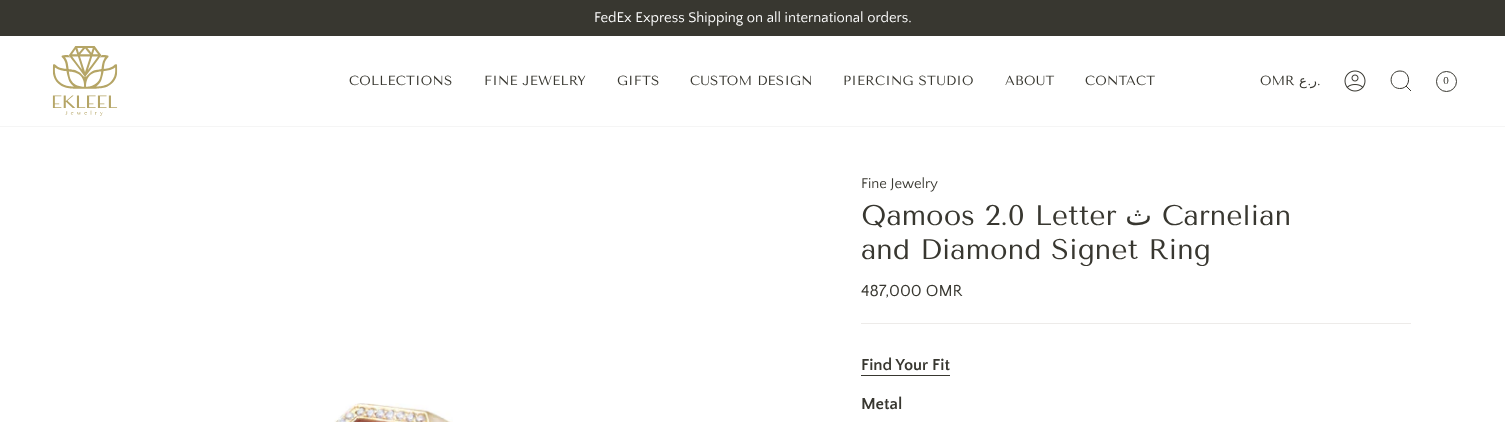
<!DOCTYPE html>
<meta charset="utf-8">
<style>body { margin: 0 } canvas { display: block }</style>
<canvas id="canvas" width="1505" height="422"></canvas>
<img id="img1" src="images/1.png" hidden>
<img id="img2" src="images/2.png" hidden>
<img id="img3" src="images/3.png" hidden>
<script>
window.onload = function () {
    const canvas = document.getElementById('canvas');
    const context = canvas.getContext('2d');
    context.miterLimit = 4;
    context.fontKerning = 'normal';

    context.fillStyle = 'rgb(255, 255, 255)';
    context.fillRect(0, 0, 1505, 422);
    context.fillStyle = 'rgb(56, 55, 48)';
    context.fillRect(0, 0, 1505, 36);
    context.drawImage(document.getElementById('img1'), 52, 46, 66, 70);
    context.drawImage(document.getElementById('img2'), 1344, 70, 22, 22);
    context.beginPath();
    context.moveTo(1400, 71);
    context.bezierCurveTo(1411.5, 71, 1411.5, 89, 1399.5, 88.5);
    context.bezierCurveTo(1388, 88, 1388.5, 71, 1400, 71);
    context.closePath();
    context.moveTo(1406, 86);
    context.lineTo(1411, 91);
    context.strokeStyle = 'rgb(56, 55, 48)';
    context.stroke();
    context.beginPath();
    context.arc(1446.5, 81.5, 10, 0, 2 * Math.PI);
    context.stroke();
    context.fillStyle = 'rgb(245, 245, 245)';
    context.fillRect(0, 126, 1505, 1);
    context.fillStyle = 'rgb(237, 235, 233)';
    context.fillRect(861, 323, 550, 1);
    context.fillStyle = 'rgb(56, 55, 48)';
    context.fillRect(861, 375, 89, 1);
    context.drawImage(document.getElementById('img3'), 334, 403, 119, 19);
    context.font = '14.7px Quattrocento Sans';
    context.fillStyle = 'rgb(255, 255, 255)';
    context.fillText('FedEx Express Shipping on all international orders.', 594, 22);
    context.letterSpacing = '0.25px';
    context.font = '13.25px Tenor Sans';
    context.fillStyle = 'rgb(56, 55, 48)';
    context.fillText('COLLECTIONS', 349, 85);
    context.fillText('FINE JEWELRY', 484, 85);
    context.fillText('GIFTS', 617, 85);
    context.fillText('CUSTOM DESIGN', 690, 85);
    context.fillText('PIERCING STUDIO', 843, 85);
    context.fillText('ABOUT', 1005, 85);
    context.fillText('CONTACT', 1085, 85);
    context.letterSpacing = '0px';
    context.fillText('OMR', 1260, 85);
    context.direction = 'rtl';
    context.font = '13.25px DejaVu Sans';
    context.fillText('ع', 1307, 85);
    context.font = '13.25px Tenor Sans';
    context.fillText('.', 1311, 85);
    context.font = '13.25px DejaVu Sans';
    context.fillText('ر', 1317, 85);
    context.direction = 'ltr';
    context.font = '13.25px Tenor Sans';
    context.fillText('.', 1317, 85);
    context.letterSpacing = '0.25px';
    context.font = '10px Tenor Sans';
    context.fillText('0', 1443, 84);
    context.letterSpacing = '0px';
    context.font = '14.7px Quattrocento Sans';
    context.fillText('Fine Jewelry', 861, 188);
    context.font = '28.4px Tenor Sans';
    context.fillText('Qamoos 2.0 Letter', 861, 225);
    context.direction = 'rtl';
    context.font = '28.4px DejaVu Sans';
    context.fillText('ث', 1152, 225);
    context.direction = 'ltr';
    context.font = '28.4px Tenor Sans';
    context.fillText('Carnelian', 1162, 225);
    context.fillText('and Diamond Signet Ring', 861, 259);
    context.font = '16.75px Quattrocento Sans';
    context.fillText('487,000 OMR', 861, 296);
    context.font = 'bold 16.75px Quattrocento Sans';
    context.fillText('Find Your Fit', 861, 370);
    context.fillText('Metal', 861, 409);
};
</script>
